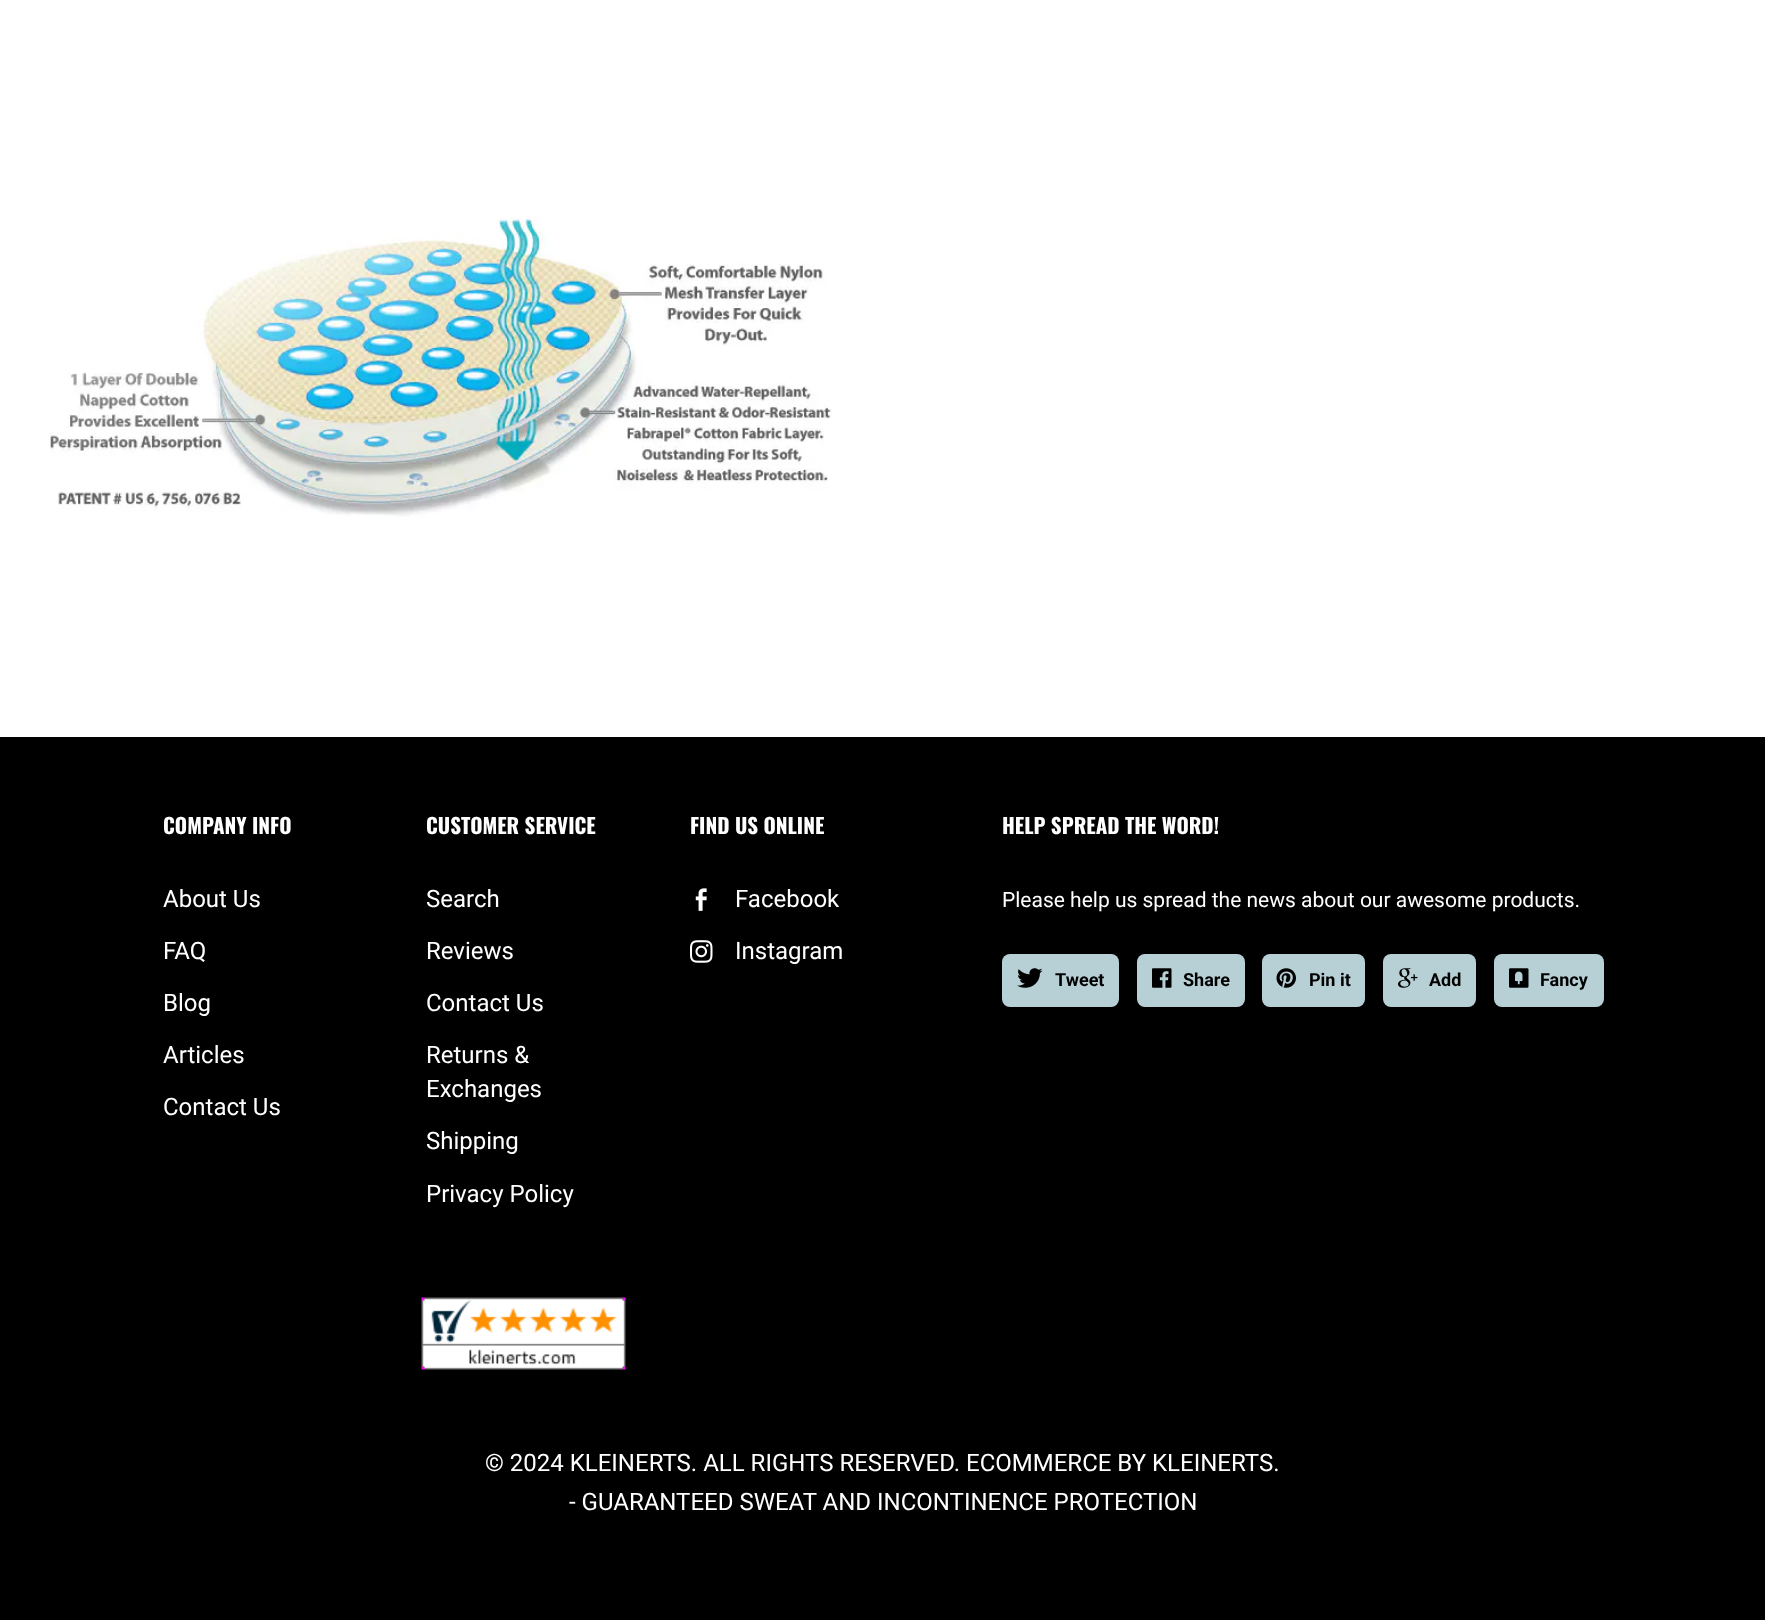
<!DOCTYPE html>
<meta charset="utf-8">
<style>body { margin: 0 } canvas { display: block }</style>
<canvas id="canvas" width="1765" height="1620"></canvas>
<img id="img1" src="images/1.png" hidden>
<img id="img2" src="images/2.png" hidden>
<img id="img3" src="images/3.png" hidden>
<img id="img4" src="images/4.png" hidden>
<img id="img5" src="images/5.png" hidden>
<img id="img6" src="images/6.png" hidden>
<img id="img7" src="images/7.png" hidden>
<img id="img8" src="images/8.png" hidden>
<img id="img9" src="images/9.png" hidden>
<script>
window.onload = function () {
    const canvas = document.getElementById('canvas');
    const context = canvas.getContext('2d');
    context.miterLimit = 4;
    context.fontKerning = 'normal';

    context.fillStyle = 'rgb(255, 255, 255)';
    context.fillRect(0, 0, 1765, 1620);
    context.drawImage(document.getElementById('img1'), 50, 216, 782, 301);
    context.fillStyle = 'rgb(0, 0, 0)';
    context.fillRect(0, 737, 1765, 883);
    context.drawImage(document.getElementById('img2'), 695, 888, 12, 23);
    context.drawImage(document.getElementById('img3'), 690, 940, 23, 23);
    context.fillStyle = 'rgb(182, 208, 214)';
    context.beginPath();
    context.roundRect(1002, 954, 117, 53, 8);
    context.fill();
    context.drawImage(document.getElementById('img4'), 1017, 968, 26, 20);
    context.beginPath();
    context.roundRect(1137, 954, 108, 53, 8);
    context.fill();
    context.drawImage(document.getElementById('img5'), 1152, 968, 20, 20);
    context.beginPath();
    context.roundRect(1262, 954, 103, 53, 8);
    context.fill();
    context.drawImage(document.getElementById('img6'), 1276, 968, 20, 20);
    context.beginPath();
    context.roundRect(1383, 954, 93, 53, 8);
    context.fill();
    context.drawImage(document.getElementById('img7'), 1398, 968, 20, 20);
    context.beginPath();
    context.roundRect(1494, 954, 110, 53, 8);
    context.fill();
    context.drawImage(document.getElementById('img8'), 1509, 968, 20, 20);
    context.drawImage(document.getElementById('img9'), 421, 1297, 205, 73);
    context.font = 'bold 21px Oswald';
    context.fillStyle = 'rgb(255, 255, 255)';
    context.fillText('COMPANY INFO', 163, 834);
    context.font = '24px Roboto';
    context.fillText('About Us', 163, 907);
    context.fillText('FAQ', 163, 959);
    context.fillText('Blog', 163, 1011);
    context.fillText('Articles', 163, 1063);
    context.fillText('Contact Us', 163, 1115);
    context.font = 'bold 21px Oswald';
    context.fillText('CUSTOMER SERVICE', 426, 834);
    context.font = '24px Roboto';
    context.fillText('Search', 426, 907);
    context.fillText('Reviews', 426, 959);
    context.fillText('Contact Us', 426, 1011);
    context.fillText('Returns &', 426, 1063);
    context.fillText('Exchanges', 426, 1097);
    context.fillText('Shipping', 426, 1149);
    context.fillText('Privacy Policy', 426, 1202);
    context.font = 'bold 21px Oswald';
    context.fillText('FIND US ONLINE', 690, 834);
    context.font = '24px Roboto';
    context.fillText('Facebook', 735, 907);
    context.fillText('Instagram', 735, 959);
    context.font = 'bold 21px Oswald';
    context.fillText('HELP SPREAD THE WORD!', 1002, 834);
    context.font = '21px Roboto';
    context.fillText('Please help us spread the news about our awesome products.', 1002, 907);
    context.font = 'bold 18px Roboto';
    context.fillStyle = 'rgb(0, 0, 0)';
    context.fillText('Tweet', 1055, 986);
    context.fillText('Share', 1183, 986);
    context.fillText('Pin it', 1309, 986);
    context.fillText('Add', 1429, 986);
    context.fillText('Fancy', 1540, 986);
    context.font = '24px Roboto';
    context.fillStyle = 'rgb(255, 255, 255)';
    context.fillText('© 2024 KLEINERTS. ALL RIGHTS RESERVED. ECOMMERCE BY KLEINERTS.', 485, 1471);
    context.fillText('- GUARANTEED SWEAT AND INCONTINENCE PROTECTION', 569, 1510);
};
</script>
